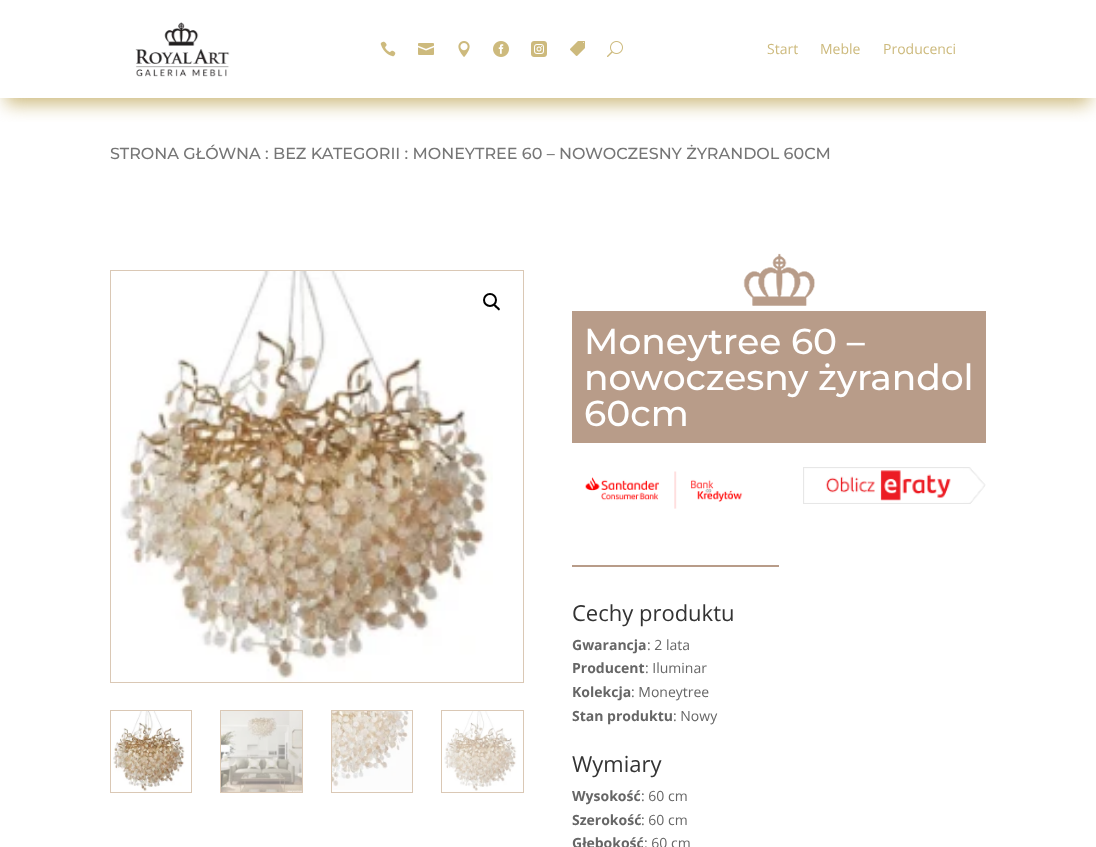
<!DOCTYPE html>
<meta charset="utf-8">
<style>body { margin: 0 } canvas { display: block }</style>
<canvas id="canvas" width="1096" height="847"></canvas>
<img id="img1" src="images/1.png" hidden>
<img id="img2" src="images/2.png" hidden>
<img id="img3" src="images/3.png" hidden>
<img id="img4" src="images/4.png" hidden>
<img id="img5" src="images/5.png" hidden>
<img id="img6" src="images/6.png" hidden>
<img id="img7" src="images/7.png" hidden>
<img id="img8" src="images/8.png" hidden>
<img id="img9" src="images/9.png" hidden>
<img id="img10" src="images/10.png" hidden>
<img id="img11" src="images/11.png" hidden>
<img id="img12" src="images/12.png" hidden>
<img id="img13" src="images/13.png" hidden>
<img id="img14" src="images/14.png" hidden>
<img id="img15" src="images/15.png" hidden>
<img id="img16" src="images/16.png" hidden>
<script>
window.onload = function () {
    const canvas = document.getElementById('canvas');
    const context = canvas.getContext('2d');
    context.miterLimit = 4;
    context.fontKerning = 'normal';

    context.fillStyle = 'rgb(255, 255, 255)';
    context.fillRect(0, 0, 1096, 847);
    context.save();
    context.beginPath();
    context.rect(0, 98, 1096, 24);
    context.clip();
    context.fillStyle = 'rgb(205, 186, 125)';
    context.filter = 'blur(9px)';
    context.beginPath();
    context.rect(6, 18, 1084, 86);
    context.fill();
    context.filter = 'none';
    context.restore();
    context.drawImage(document.getElementById('img1'), 135, 22, 95, 55);
    context.drawImage(document.getElementById('img2'), 380, 41, 16, 16);
    context.drawImage(document.getElementById('img3'), 418, 43, 16, 12);
    context.drawImage(document.getElementById('img4'), 458, 41, 12, 16);
    context.drawImage(document.getElementById('img5'), 493, 41, 16, 16);
    context.drawImage(document.getElementById('img6'), 531, 41, 16, 16);
    context.drawImage(document.getElementById('img7'), 570, 41, 15, 15);
    context.drawImage(document.getElementById('img8'), 607, 41, 16, 16);
    context.strokeStyle = 'rgb(218, 200, 181)';
    context.strokeRect(110.5, 270.5, 413, 412);
    context.drawImage(document.getElementById('img9'), 120, 271, 373, 411);
    context.beginPath();
    context.arc(490, 300, 6, 0, 2 * Math.PI);
    context.strokeStyle = 'rgb(0, 0, 0)';
    context.lineWidth = 2;
    context.stroke();
    context.fillStyle = 'rgb(0, 0, 0)';
    context.beginPath();
    context.moveTo(494, 304.5);
    context.bezierCurveTo(495, 303.5, 497, 306, 497.5, 306.5);
    context.bezierCurveTo(498, 307, 501, 309, 499.5, 310);
    context.bezierCurveTo(498.5, 311.5, 497, 308.5, 496, 308);
    context.bezierCurveTo(495.5, 307.5, 493, 305.5, 494, 304.5);
    context.closePath();
    context.fill();
    context.strokeStyle = 'rgb(218, 200, 181)';
    context.lineWidth = 1;
    context.strokeRect(110.5, 710.5, 81, 82);
    context.drawImage(document.getElementById('img10'), 113, 711, 72, 81);
    context.strokeRect(220.5, 710.5, 82, 82);
    context.drawImage(document.getElementById('img11'), 221, 711, 81, 81);
    context.strokeRect(331.5, 710.5, 81, 82);
    context.drawImage(document.getElementById('img12'), 332, 711, 80, 79);
    context.strokeRect(441.5, 710.5, 82, 82);
    context.drawImage(document.getElementById('img13'), 444, 711, 73, 80);
    context.drawImage(document.getElementById('img14'), 743, 253, 72, 53);
    context.fillStyle = 'rgb(184, 156, 137)';
    context.fillRect(572, 311, 414, 132);
    context.drawImage(document.getElementById('img15'), 585, 471, 158, 38);
    context.drawImage(document.getElementById('img16'), 803, 467, 183, 37);
    context.fillRect(572, 565, 207, 2);
    context.font = '14px Open Sans';
    context.fillStyle = 'rgb(205, 186, 125)';
    context.fillText('Start', 767, 54);
    context.fillText('Meble', 820, 54);
    context.fillText('Producenci', 883, 54);
    context.font = '500 16px Montserrat';
    context.fillStyle = 'rgb(118, 118, 118)';
    context.fillText('STRONA GŁÓWNA : BEZ KATEGORII : MONEYTREE 60 – NOWOCZESNY ŻYRANDOL 60CM', 110, 159);
    context.font = '500 36px Montserrat';
    context.fillStyle = 'rgb(255, 255, 255)';
    context.fillText('Moneytree 60 –', 584, 354);
    context.fillText('nowoczesny żyrandol', 584, 390);
    context.fillText('60cm', 584, 426);
    context.font = '22px Open Sans';
    context.fillStyle = 'rgb(51, 51, 51)';
    context.fillText('Cechy produktu', 572, 621);
    context.font = 'bold 14px Open Sans';
    context.fillStyle = 'rgb(102, 102, 102)';
    context.fillText('Gwarancja', 572, 650);
    context.font = '14px Open Sans';
    context.fillText(': 2 lata', 647, 650);
    context.font = 'bold 14px Open Sans';
    context.fillText('Producent', 572, 673);
    context.font = '14px Open Sans';
    context.fillText(': Iluminar', 645, 673);
    context.font = 'bold 14px Open Sans';
    context.fillText('Kolekcja', 572, 697);
    context.font = '14px Open Sans';
    context.fillText(': Moneytree', 631, 697);
    context.font = 'bold 14px Open Sans';
    context.fillText('Stan produktu', 572, 721);
    context.font = '14px Open Sans';
    context.fillText(': Nowy', 673, 721);
    context.font = '22px Open Sans';
    context.fillStyle = 'rgb(51, 51, 51)';
    context.fillText('Wymiary', 572, 772);
    context.font = 'bold 14px Open Sans';
    context.fillStyle = 'rgb(102, 102, 102)';
    context.fillText('Wysokość', 572, 801);
    context.font = '14px Open Sans';
    context.fillText(': 60 cm', 641, 801);
    context.font = 'bold 14px Open Sans';
    context.fillText('Szerokość', 572, 825);
    context.font = '14px Open Sans';
    context.fillText(': 60 cm', 641, 825);
    context.font = 'bold 14px Open Sans';
    context.fillText('Głębokość', 572, 848);
    context.font = '14px Open Sans';
    context.fillText(': 60 cm', 644, 848);
};
</script>
